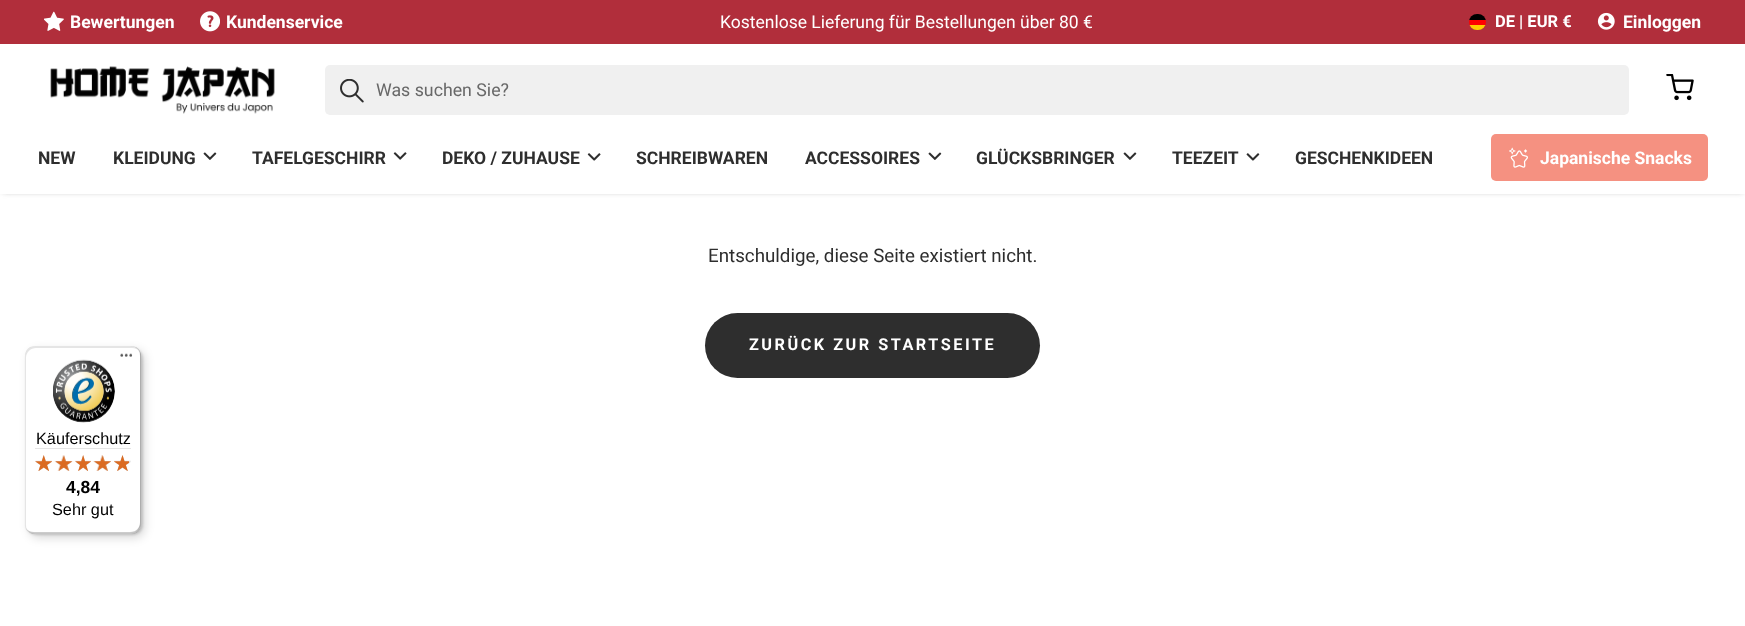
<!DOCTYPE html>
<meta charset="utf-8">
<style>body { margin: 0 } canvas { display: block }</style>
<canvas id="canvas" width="1745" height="626"></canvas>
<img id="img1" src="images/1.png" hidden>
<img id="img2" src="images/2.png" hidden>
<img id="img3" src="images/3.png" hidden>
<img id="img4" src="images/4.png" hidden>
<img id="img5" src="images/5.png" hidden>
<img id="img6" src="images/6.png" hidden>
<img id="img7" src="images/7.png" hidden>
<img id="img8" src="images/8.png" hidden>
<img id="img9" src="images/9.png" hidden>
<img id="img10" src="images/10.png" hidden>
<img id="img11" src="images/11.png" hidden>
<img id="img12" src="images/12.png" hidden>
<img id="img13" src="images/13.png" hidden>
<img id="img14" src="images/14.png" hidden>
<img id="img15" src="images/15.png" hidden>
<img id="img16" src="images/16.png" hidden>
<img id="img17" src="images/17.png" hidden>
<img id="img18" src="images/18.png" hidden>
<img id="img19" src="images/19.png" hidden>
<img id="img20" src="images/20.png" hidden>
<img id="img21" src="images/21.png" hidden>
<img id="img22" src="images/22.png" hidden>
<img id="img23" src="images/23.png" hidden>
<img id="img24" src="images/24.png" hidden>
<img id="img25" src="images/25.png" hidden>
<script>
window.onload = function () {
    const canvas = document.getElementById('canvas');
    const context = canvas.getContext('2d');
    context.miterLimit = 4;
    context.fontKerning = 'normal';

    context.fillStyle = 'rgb(255, 255, 255)';
    context.fillRect(0, 0, 1745, 626);
    context.fillStyle = 'rgb(145, 145, 145)';
    context.filter = 'blur(3px)';
    context.beginPath();
    context.rect(3, 3, 1740, 188);
    context.fill();
    context.filter = 'none';
    context.fillStyle = 'rgb(255, 255, 255)';
    context.fillRect(0, 44, 1745, 150);
    context.fillStyle = 'rgb(177, 46, 59)';
    context.fillRect(0, 0, 1745, 44);
    context.drawImage(document.getElementById('img1'), 44, 11, 20, 20);
    context.drawImage(document.getElementById('img2'), 200, 11, 20, 21);
    context.save();
    context.beginPath();
    context.roundRect(1469, 14, 17, 16, 8);
    context.clip();
    context.fillStyle = 'rgb(255, 204, 0)';
    context.fillRect(1469, 25, 17, 5);
    context.fillStyle = 'rgb(0, 0, 0)';
    context.fillRect(1469, 14, 17, 6);
    context.fillStyle = 'rgb(255, 0, 0)';
    context.fillRect(1469, 20, 17, 5);
    context.restore();
    context.drawImage(document.getElementById('img3'), 1597, 12, 18, 18);
    context.drawImage(document.getElementById('img4'), 50, 66, 225, 48);
    context.fillStyle = 'rgb(240, 240, 240)';
    context.beginPath();
    context.roundRect(325, 65, 1304, 50, 5);
    context.fill();
    context.drawImage(document.getElementById('img5'), 340, 79, 24, 24);
    context.drawImage(document.getElementById('img6'), 1666, 74, 28, 27);
    context.drawImage(document.getElementById('img7'), 203, 152, 14, 8);
    context.drawImage(document.getElementById('img8'), 393, 152, 14, 8);
    context.drawImage(document.getElementById('img9'), 587, 153, 14, 8);
    context.drawImage(document.getElementById('img10'), 928, 152, 14, 8);
    context.drawImage(document.getElementById('img11'), 1123, 152, 14, 8);
    context.drawImage(document.getElementById('img12'), 1246, 153, 14, 8);
    context.fillStyle = 'rgb(245, 145, 129)';
    context.beginPath();
    context.roundRect(1491, 134, 217, 47, 5);
    context.fill();
    context.drawImage(document.getElementById('img13'), 1509, 147, 19, 21);
    context.fillStyle = 'rgb(46, 46, 46)';
    context.beginPath();
    context.roundRect(705, 313, 335, 65, 32.5);
    context.fill();
    context.fillStyle = 'rgba(0, 0, 0, 0.15)';
    context.filter = 'blur(5px)';
    context.beginPath();
    context.roundRect(29, 350, 116, 188, 10);
    context.fill();
    context.filter = 'none';
    context.filter = 'blur(1px)';
    context.beginPath();
    context.roundRect(26, 348, 117, 187, 10);
    context.fill();
    context.filter = 'none';
    context.fillStyle = 'rgb(255, 255, 255)';
    context.beginPath();
    context.roundRect(25, 346, 116, 188, 10);
    context.fill();
    context.fillStyle = 'rgba(0, 0, 0, 0.1)';
    context.beginPath();
    context.moveTo(36, 348);
    context.lineTo(132, 348);
    context.bezierCurveTo(135, 348, 138, 349, 140, 352);
    context.bezierCurveTo(138, 348, 135, 346, 131, 346);
    context.lineTo(35, 346);
    context.bezierCurveTo(29, 346, 25, 350, 25, 356);
    context.lineTo(25, 524);
    context.bezierCurveTo(25, 527, 26, 530, 28, 532);
    context.bezierCurveTo(27, 530, 26, 528, 26, 525);
    context.lineTo(26, 358);
    context.bezierCurveTo(26, 352, 31, 348, 36, 348);
    context.closePath();
    context.fill();
    context.fillStyle = 'rgba(0, 0, 0, 0.2)';
    context.beginPath();
    context.moveTo(26, 528);
    context.bezierCurveTo(28, 532, 31, 534, 35, 534);
    context.lineTo(131, 534);
    context.bezierCurveTo(137, 534, 141, 530, 141, 524);
    context.lineTo(141, 356);
    context.bezierCurveTo(141, 354, 140, 351, 139, 350);
    context.bezierCurveTo(140, 351, 140, 353, 140, 355);
    context.lineTo(140, 522);
    context.bezierCurveTo(140, 528, 136, 532, 130, 532);
    context.lineTo(34, 532);
    context.bezierCurveTo(31, 532, 28, 531, 26, 528);
    context.closePath();
    context.fill();
    context.fillStyle = 'rgba(50, 50, 50, 0.2)';
    context.beginPath();
    context.moveTo(27, 530);
    context.bezierCurveTo(29, 533, 32, 534, 35, 534);
    context.lineTo(131, 534);
    context.bezierCurveTo(137, 534, 141, 530, 141, 524);
    context.lineTo(141, 356);
    context.bezierCurveTo(141, 350, 137, 346, 131, 346);
    context.lineTo(130, 346);
    context.bezierCurveTo(136, 346, 140, 350, 140, 356);
    context.lineTo(140, 523);
    context.bezierCurveTo(140, 529, 136, 533, 130, 533);
    context.lineTo(34, 533);
    context.bezierCurveTo(32, 533, 29, 532, 27, 530);
    context.closePath();
    context.fill();
    context.drawImage(document.getElementById('img14'), 120, 353, 13, 4);
    context.fillStyle = 'rgba(255, 255, 255, 0.3)';
    context.beginPath();
    context.moveTo(27, 530);
    context.bezierCurveTo(29, 533, 32, 534, 35, 534);
    context.lineTo(131, 534);
    context.bezierCurveTo(137, 534, 141, 530, 141, 524);
    context.lineTo(141, 523);
    context.bezierCurveTo(141, 529, 136, 533, 131, 533);
    context.lineTo(34, 533);
    context.bezierCurveTo(32, 533, 29, 532, 27, 530);
    context.closePath();
    context.moveTo(139, 350);
    context.bezierCurveTo(137, 347, 134, 346, 131, 346);
    context.bezierCurveTo(134, 346, 137, 347, 139, 350);
    context.closePath();
    context.fill('evenodd');
    context.drawImage(document.getElementById('img15'), 53, 359, 62, 64);
    context.fillStyle = 'rgb(229, 229, 229)';
    context.fillRect(35, 448, 96, 1);
    context.drawImage(document.getElementById('img16'), 35, 455, 17, 16);
    context.drawImage(document.getElementById('img17'), 55, 455, 17, 16);
    context.drawImage(document.getElementById('img18'), 75, 455, 16, 16);
    context.drawImage(document.getElementById('img19'), 93, 455, 18, 16);
    context.drawImage(document.getElementById('img20'), 114, 455, 17, 16);
    context.drawImage(document.getElementById('img21'), 35, 455, 17, 16);
    context.drawImage(document.getElementById('img22'), 54, 455, 19, 16);
    context.drawImage(document.getElementById('img23'), 75, 455, 16, 16);
    context.drawImage(document.getElementById('img24'), 93, 455, 18, 16);
    context.drawImage(document.getElementById('img25'), 114, 455, 15, 16);
    context.font = 'bold 17.5px Roboto';
    context.fillStyle = 'rgb(255, 255, 255)';
    context.fillText('Bewertungen', 70, 28);
    context.fillText('Kundenservice', 226, 28);
    context.font = '17.5px Roboto';
    context.fillText('Kostenlose Lieferung für Bestellungen über 80 €', 720, 28);
    context.font = 'bold 16.5px Roboto';
    context.fillText('DE | EUR €', 1495, 27);
    context.font = 'bold 17.5px Roboto';
    context.fillText('Einloggen', 1623, 28);
    context.font = '17.75px Roboto';
    context.fillStyle = 'rgb(104, 104, 104)';
    context.fillText('Was suchen Sie?', 376, 96);
    context.font = 'bold 17.5px Roboto';
    context.fillStyle = 'rgb(46, 46, 46)';
    context.fillText('NEW', 38, 164);
    context.fillText('KLEIDUNG', 113, 164);
    context.fillText('TAFELGESCHIRR', 252, 164);
    context.fillText('DEKO / ZUHAUSE', 442, 164);
    context.fillText('SCHREIBWAREN', 636, 164);
    context.fillText('ACCESSOIRES', 805, 164);
    context.fillText('GLÜCKSBRINGER', 976, 164);
    context.fillText('TEEZEIT', 1172, 164);
    context.fillText('GESCHENKIDEEN', 1295, 164);
    context.fillStyle = 'rgb(255, 255, 255)';
    context.fillText('Japanische Snacks', 1540, 164);
    context.font = '18.75px Roboto';
    context.fillStyle = 'rgb(46, 46, 46)';
    context.fillText('Entschuldige, diese Seite existiert nicht.', 708, 262);
    context.letterSpacing = '2.5px';
    context.font = 'bold 16.25px Roboto';
    context.fillStyle = 'rgb(255, 255, 255)';
    context.fillText('ZURÜCK ZUR STARTSEITE', 749, 350);
    context.letterSpacing = '0px';
    context.font = '16.25px Liberation Sans';
    context.fillStyle = 'rgb(0, 0, 0)';
    context.fillText('Käuferschutz', 36, 444);
    context.font = 'bold 17.5px Liberation Sans';
    context.fillText('4,84', 66, 493);
    context.font = '16.25px Liberation Sans';
    context.fillText('Sehr gut', 52, 515);
};
</script>
